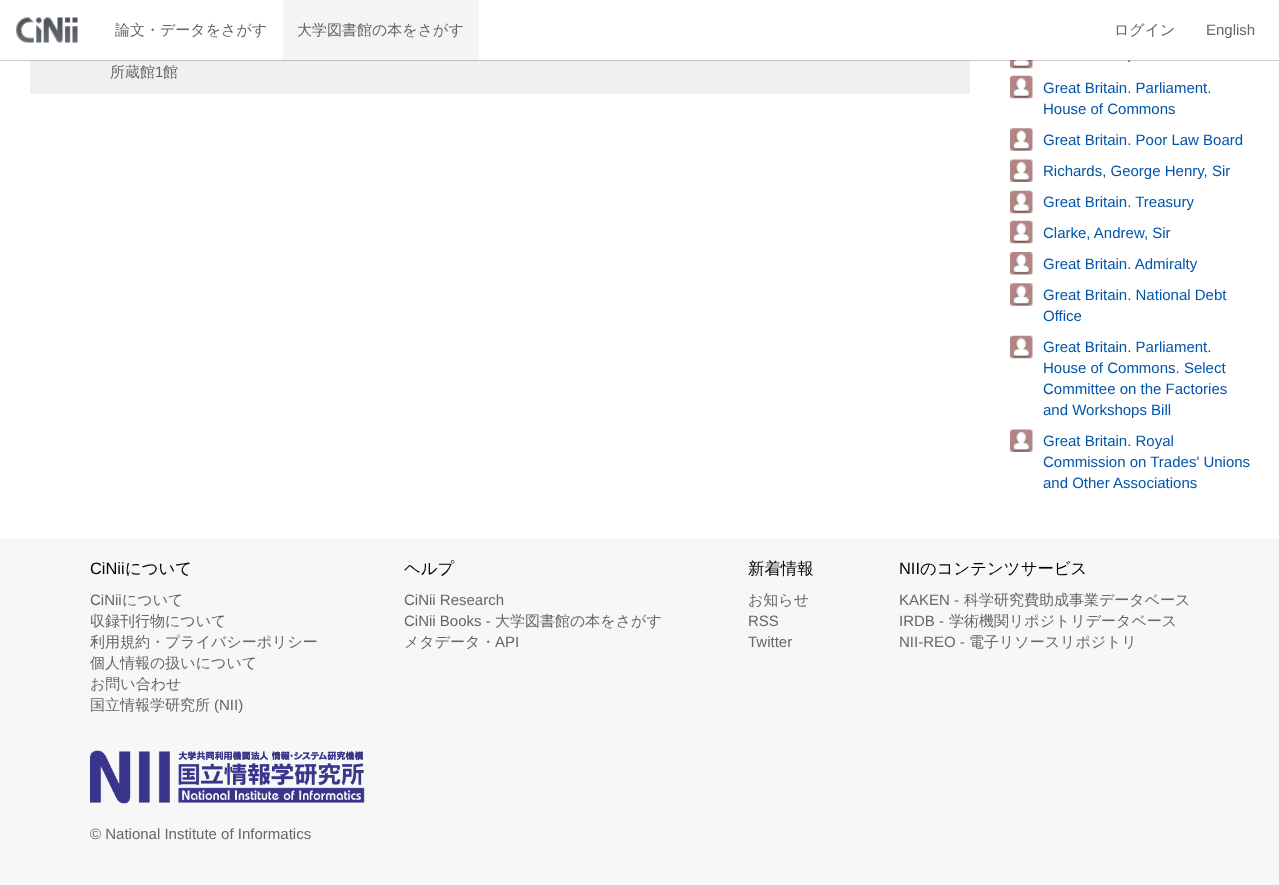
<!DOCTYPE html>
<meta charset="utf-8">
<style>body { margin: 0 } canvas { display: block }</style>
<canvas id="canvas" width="1279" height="885"></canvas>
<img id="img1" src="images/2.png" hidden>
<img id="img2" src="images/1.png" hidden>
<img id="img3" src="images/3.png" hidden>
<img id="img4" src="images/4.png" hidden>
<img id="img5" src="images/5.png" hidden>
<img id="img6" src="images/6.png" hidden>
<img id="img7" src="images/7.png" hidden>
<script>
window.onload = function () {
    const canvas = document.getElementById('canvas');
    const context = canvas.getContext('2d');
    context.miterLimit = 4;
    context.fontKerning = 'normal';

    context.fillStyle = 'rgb(255, 255, 255)';
    context.fillRect(0, 0, 1279, 885);
    context.fillStyle = 'rgb(240, 240, 240)';
    context.fillRect(30, 60, 940, 34);
    context.drawImage(document.getElementById('img1'), 1010, 60, 23, 9);
    context.fillStyle = 'rgba(0, 0, 0, 0.2)';
    context.filter = 'blur(0.5px)';
    context.beginPath();
    context.rect(0, 1, 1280, 60);
    context.fill();
    context.filter = 'none';
    context.fillStyle = 'rgb(255, 255, 255)';
    context.fillRect(0, 0, 1279, 60);
    context.drawImage(document.getElementById('img2'), 16, 17, 62, 26);
    context.fillStyle = 'rgb(244, 244, 244)';
    context.fillRect(283, 0, 196, 60);
    context.drawImage(document.getElementById('img3'), 1010, 75, 23, 24);
    context.drawImage(document.getElementById('img4'), 1010, 128, 23, 23);
    context.drawImage(document.getElementById('img5'), 1010, 159, 23, 23);
    context.drawImage(document.getElementById('img3'), 1010, 190, 23, 24);
    context.drawImage(document.getElementById('img3'), 1010, 220, 23, 24);
    context.drawImage(document.getElementById('img6'), 1010, 252, 23, 23);
    context.drawImage(document.getElementById('img4'), 1010, 283, 23, 23);
    context.drawImage(document.getElementById('img3'), 1010, 335, 23, 24);
    context.drawImage(document.getElementById('img5'), 1010, 429, 23, 23);
    context.fillStyle = 'rgb(247, 247, 247)';
    context.fillRect(0, 539, 1279, 346);
    context.drawImage(document.getElementById('img7'), 90, 750, 275, 54);
    context.font = '500 15px WenQuanYi Zen Hei';
    context.fillStyle = 'rgb(102, 102, 102)';
    context.fillText('論文・データをさがす', 115, 35);
    context.fillText('大学図書館の本をさがす', 297, 35);
    context.fillText('ログイン', 1114, 35);
    context.font = '15px Liberation Sans';
    context.fillText('English', 1206, 35);
    context.font = '500 15px WenQuanYi Zen Hei';
    context.fillText('所蔵館', 110, 77);
    context.font = '15px Liberation Sans';
    context.fillText('1', 155, 77);
    context.font = '500 15px WenQuanYi Zen Hei';
    context.fillText('館', 163, 77);
    context.font = '15px Liberation Sans';
    context.fillStyle = 'rgb(0, 85, 170)';
    context.fillText('.', 1127, 62);
    context.fillText('Great Britain. Parliament.', 1043, 93);
    context.fillText('House of Commons', 1043, 114);
    context.fillText('Great Britain. Poor Law Board', 1043, 145);
    context.fillText('Richards, George Henry, Sir', 1043, 176);
    context.fillText('Great Britain. Treasury', 1043, 207);
    context.fillText('Clarke, Andrew, Sir', 1043, 238);
    context.fillText('Great Britain. Admiralty', 1043, 269);
    context.fillText('Great Britain. National Debt', 1043, 300);
    context.fillText('Office', 1043, 321);
    context.fillText('Great Britain. Parliament.', 1043, 352);
    context.fillText('House of Commons. Select', 1043, 373);
    context.fillText('Committee on the Factories', 1043, 394);
    context.fillText('and Workshops Bill', 1043, 415);
    context.fillText('Great Britain. Royal', 1043, 446);
    context.fillText('Commission on Trades\' Unions', 1043, 467);
    context.fillText('and Other Associations', 1043, 488);
    context.font = '16.4px Liberation Sans';
    context.fillStyle = 'rgb(0, 0, 0)';
    context.fillText('CiNii', 90, 574);
    context.font = '500 16.4px WenQuanYi Zen Hei';
    context.fillText('について', 125, 574);
    context.font = '15px Liberation Sans';
    context.fillStyle = 'rgb(102, 102, 102)';
    context.fillText('CiNii', 90, 605);
    context.font = '500 15px WenQuanYi Zen Hei';
    context.fillText('について', 122, 605);
    context.fillText('収録刊行物について', 90, 626);
    context.fillText('利用規約・プライバシーポリシー', 90, 647);
    context.fillText('個人情報の扱いについて', 90, 668);
    context.fillText('お問い合わせ', 90, 689);
    context.fillText('国立情報学研究所', 90, 710);
    context.font = '15px Liberation Sans';
    context.fillText('(NII)', 214, 710);
    context.font = '500 16.4px WenQuanYi Zen Hei';
    context.fillStyle = 'rgb(0, 0, 0)';
    context.fillText('ヘルプ', 404, 574);
    context.font = '15px Liberation Sans';
    context.fillStyle = 'rgb(102, 102, 102)';
    context.fillText('CiNii Research', 404, 605);
    context.fillText('CiNii Books -', 404, 626);
    context.font = '500 15px WenQuanYi Zen Hei';
    context.fillText('大学図書館の本をさがす', 495, 626);
    context.fillText('メタデータ・', 404, 647);
    context.font = '15px Liberation Sans';
    context.fillText('API', 495, 647);
    context.font = '500 16.4px WenQuanYi Zen Hei';
    context.fillStyle = 'rgb(0, 0, 0)';
    context.fillText('新着情報', 748, 574);
    context.font = '500 15px WenQuanYi Zen Hei';
    context.fillStyle = 'rgb(102, 102, 102)';
    context.fillText('お知らせ', 748, 605);
    context.font = '15px Liberation Sans';
    context.fillText('RSS', 748, 626);
    context.fillText('Twitter', 748, 647);
    context.font = '16.4px Liberation Sans';
    context.fillStyle = 'rgb(0, 0, 0)';
    context.fillText('NII', 899, 574);
    context.font = '500 16.4px WenQuanYi Zen Hei';
    context.fillText('のコンテンツサービス', 920, 574);
    context.font = '15px Liberation Sans';
    context.fillStyle = 'rgb(102, 102, 102)';
    context.fillText('KAKEN -', 899, 605);
    context.font = '500 15px WenQuanYi Zen Hei';
    context.fillText('科学研究費助成事業データベース', 964, 605);
    context.font = '15px Liberation Sans';
    context.fillText('IRDB -', 899, 626);
    context.font = '500 15px WenQuanYi Zen Hei';
    context.fillText('学術機関リポジトリデータベース', 949, 626);
    context.font = '15px Liberation Sans';
    context.fillText('NII-REO -', 899, 647);
    context.font = '500 15px WenQuanYi Zen Hei';
    context.fillText('電子リソースリポジトリ', 969, 647);
    context.font = '15px Liberation Sans';
    context.fillText('© National Institute of Informatics', 90, 839);
};
</script>
